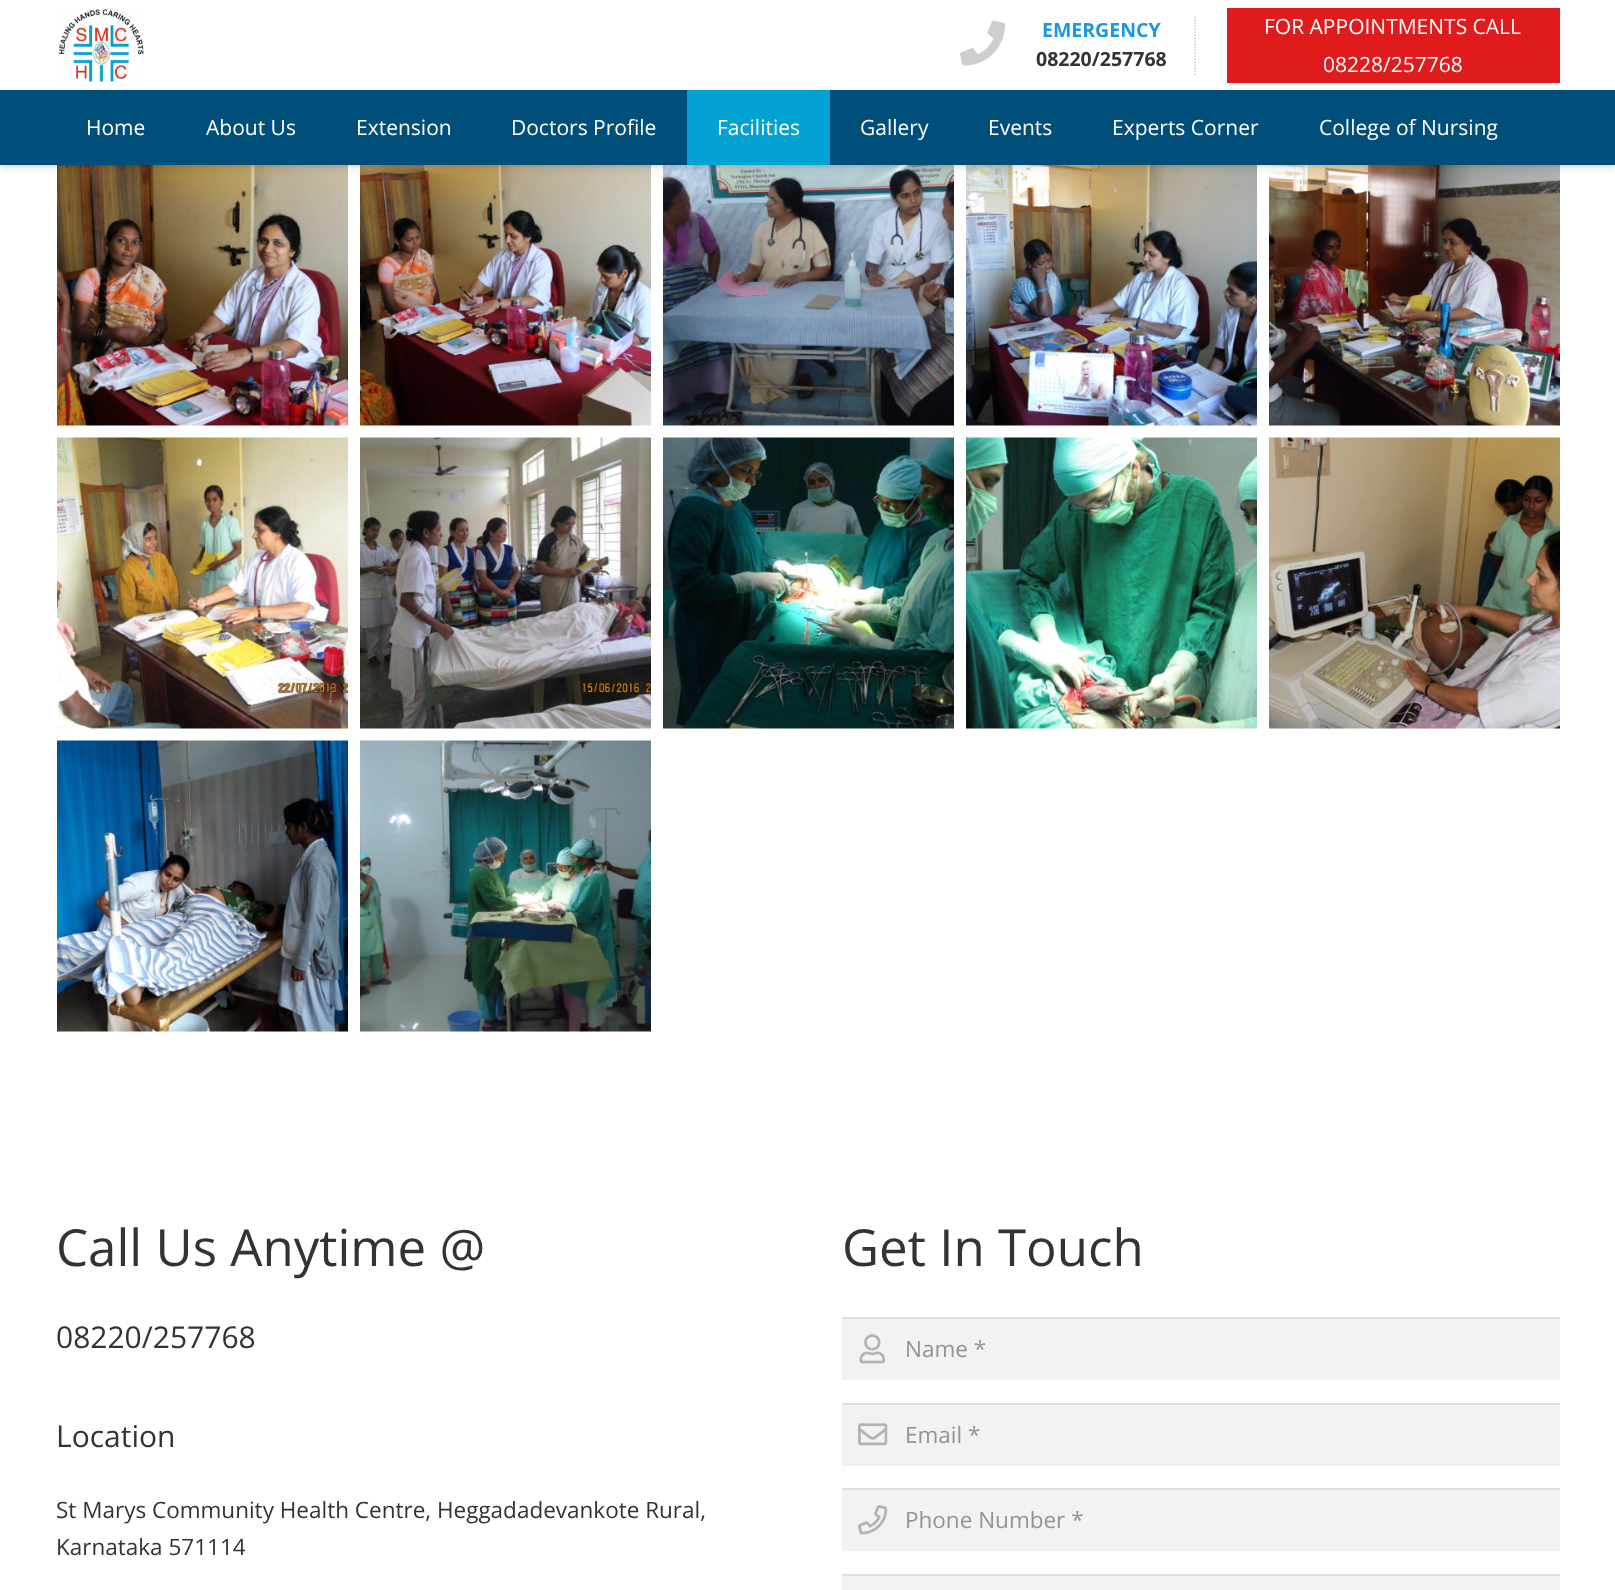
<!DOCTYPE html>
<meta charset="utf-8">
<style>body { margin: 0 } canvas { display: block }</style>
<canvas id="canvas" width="1615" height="1590"></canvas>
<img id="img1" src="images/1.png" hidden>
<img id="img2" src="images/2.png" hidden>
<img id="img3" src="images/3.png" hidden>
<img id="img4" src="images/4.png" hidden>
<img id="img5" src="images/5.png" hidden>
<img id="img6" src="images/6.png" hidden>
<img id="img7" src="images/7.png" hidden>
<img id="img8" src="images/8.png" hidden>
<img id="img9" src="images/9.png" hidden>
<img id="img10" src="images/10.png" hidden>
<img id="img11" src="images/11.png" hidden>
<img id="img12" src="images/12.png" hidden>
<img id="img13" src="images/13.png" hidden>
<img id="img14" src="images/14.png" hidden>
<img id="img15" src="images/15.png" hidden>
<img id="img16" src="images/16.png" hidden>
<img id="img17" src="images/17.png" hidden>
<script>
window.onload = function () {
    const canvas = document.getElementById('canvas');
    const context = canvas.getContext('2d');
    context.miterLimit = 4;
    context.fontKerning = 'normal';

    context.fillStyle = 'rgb(255, 255, 255)';
    context.fillRect(0, 0, 1615, 1590);
    context.drawImage(document.getElementById('img1'), 59, 9, 85, 74);
    context.drawImage(document.getElementById('img2'), 960, 20, 45, 46);
    context.beginPath();
    context.moveTo(1195, 16.5);
    context.lineTo(1195, 75);
    context.strokeStyle = 'rgb(204, 204, 204)';
    context.lineWidth = 1.5;
    context.setLineDash([1.5, 1.5]);
    context.stroke();
    context.fillStyle = 'rgb(224, 27, 27)';
    context.fillRect(1227, 8, 333, 75);
    context.drawImage(document.getElementById('img3'), 57, 165, 291, 261);
    context.drawImage(document.getElementById('img4'), 360, 165, 291, 261);
    context.drawImage(document.getElementById('img5'), 663, 165, 291, 261);
    context.drawImage(document.getElementById('img6'), 966, 165, 291, 261);
    context.drawImage(document.getElementById('img7'), 1269, 165, 291, 261);
    context.fillStyle = 'rgba(0, 0, 0, 0.05)';
    context.filter = 'blur(1px)';
    context.beginPath();
    context.rect(2, 95, 1612, 72);
    context.fill();
    context.filter = 'none';
    context.fillStyle = 'rgba(0, 0, 0, 0.1)';
    context.filter = 'blur(4px)';
    context.beginPath();
    context.rect(2, 96, 1612, 72);
    context.fill();
    context.filter = 'none';
    context.fillStyle = 'rgb(0, 78, 122)';
    context.fillRect(0, 90, 1615, 75);
    context.fillStyle = 'rgb(2, 162, 211)';
    context.fillRect(687, 90, 143, 75);
    context.drawImage(document.getElementById('img8'), 57, 437, 291, 292);
    context.drawImage(document.getElementById('img9'), 360, 437, 291, 292);
    context.drawImage(document.getElementById('img10'), 663, 437, 291, 292);
    context.drawImage(document.getElementById('img11'), 966, 437, 291, 292);
    context.drawImage(document.getElementById('img12'), 1269, 437, 291, 292);
    context.drawImage(document.getElementById('img13'), 57, 740, 291, 292);
    context.drawImage(document.getElementById('img14'), 360, 740, 291, 292);
    context.fillStyle = 'rgb(242, 242, 242)';
    context.fillRect(842, 1319, 718, 61);
    context.drawImage(document.getElementById('img15'), 859, 1334, 27, 30);
    context.fillStyle = 'rgb(223, 223, 223)';
    context.fillRect(842, 1317, 718, 2);
    context.fillStyle = 'rgb(242, 242, 242)';
    context.fillRect(842, 1405, 718, 61);
    context.drawImage(document.getElementById('img16'), 858, 1423, 30, 23);
    context.fillStyle = 'rgb(223, 223, 223)';
    context.fillRect(842, 1403, 718, 2);
    context.fillStyle = 'rgb(242, 242, 242)';
    context.fillRect(842, 1490, 718, 61);
    context.drawImage(document.getElementById('img17'), 858, 1505, 30, 30);
    context.fillStyle = 'rgb(223, 223, 223)';
    context.fillRect(842, 1488, 718, 2);
    context.fillStyle = 'rgb(242, 242, 242)';
    context.fillRect(842, 1576, 718, 14);
    context.fillStyle = 'rgb(223, 223, 223)';
    context.fillRect(842, 1574, 718, 2);
    context.font = 'bold 19.5px Open Sans';
    context.fillStyle = 'rgb(27, 152, 224)';
    context.fillText('EMERGENCY', 1042, 37);
    context.fillStyle = 'rgb(51, 51, 51)';
    context.fillText('08220/257768', 1036, 66);
    context.font = '21px Open Sans';
    context.fillStyle = 'rgb(255, 255, 255)';
    context.fillText('FOR APPOINTMENTS CALL', 1264, 34);
    context.fillText('08228/257768', 1323, 72);
    context.fillText('Home', 86, 135);
    context.fillText('About Us', 206, 135);
    context.fillText('Extension', 356, 135);
    context.fillText('Doctors Profile', 511, 135);
    context.fillText('Facilities', 717, 135);
    context.fillText('Gallery', 860, 135);
    context.fillText('Events', 988, 135);
    context.fillText('Experts Corner', 1112, 135);
    context.fillText('College of Nursing', 1319, 135);
    context.font = '51px Open Sans';
    context.fillStyle = 'rgb(51, 51, 51)';
    context.fillText('Call Us Anytime @', 56, 1266);
    context.font = '30px Open Sans';
    context.fillText('08220/257768', 56, 1348);
    context.fillText('Location', 56, 1447);
    context.font = '22.5px Open Sans';
    context.fillText('St Marys Community Health Centre, Heggadadevankote Rural,', 56, 1518);
    context.fillText('Karnataka 571114', 56, 1555);
    context.font = '51px Open Sans';
    context.fillText('Get In Touch', 842, 1266);
    context.font = '22.5px Open Sans';
    context.fillStyle = 'rgb(147, 147, 147)';
    context.fillText('Name *', 905, 1357);
    context.fillText('Email *', 905, 1443);
    context.fillText('Phone Number *', 905, 1528);
};
</script>
